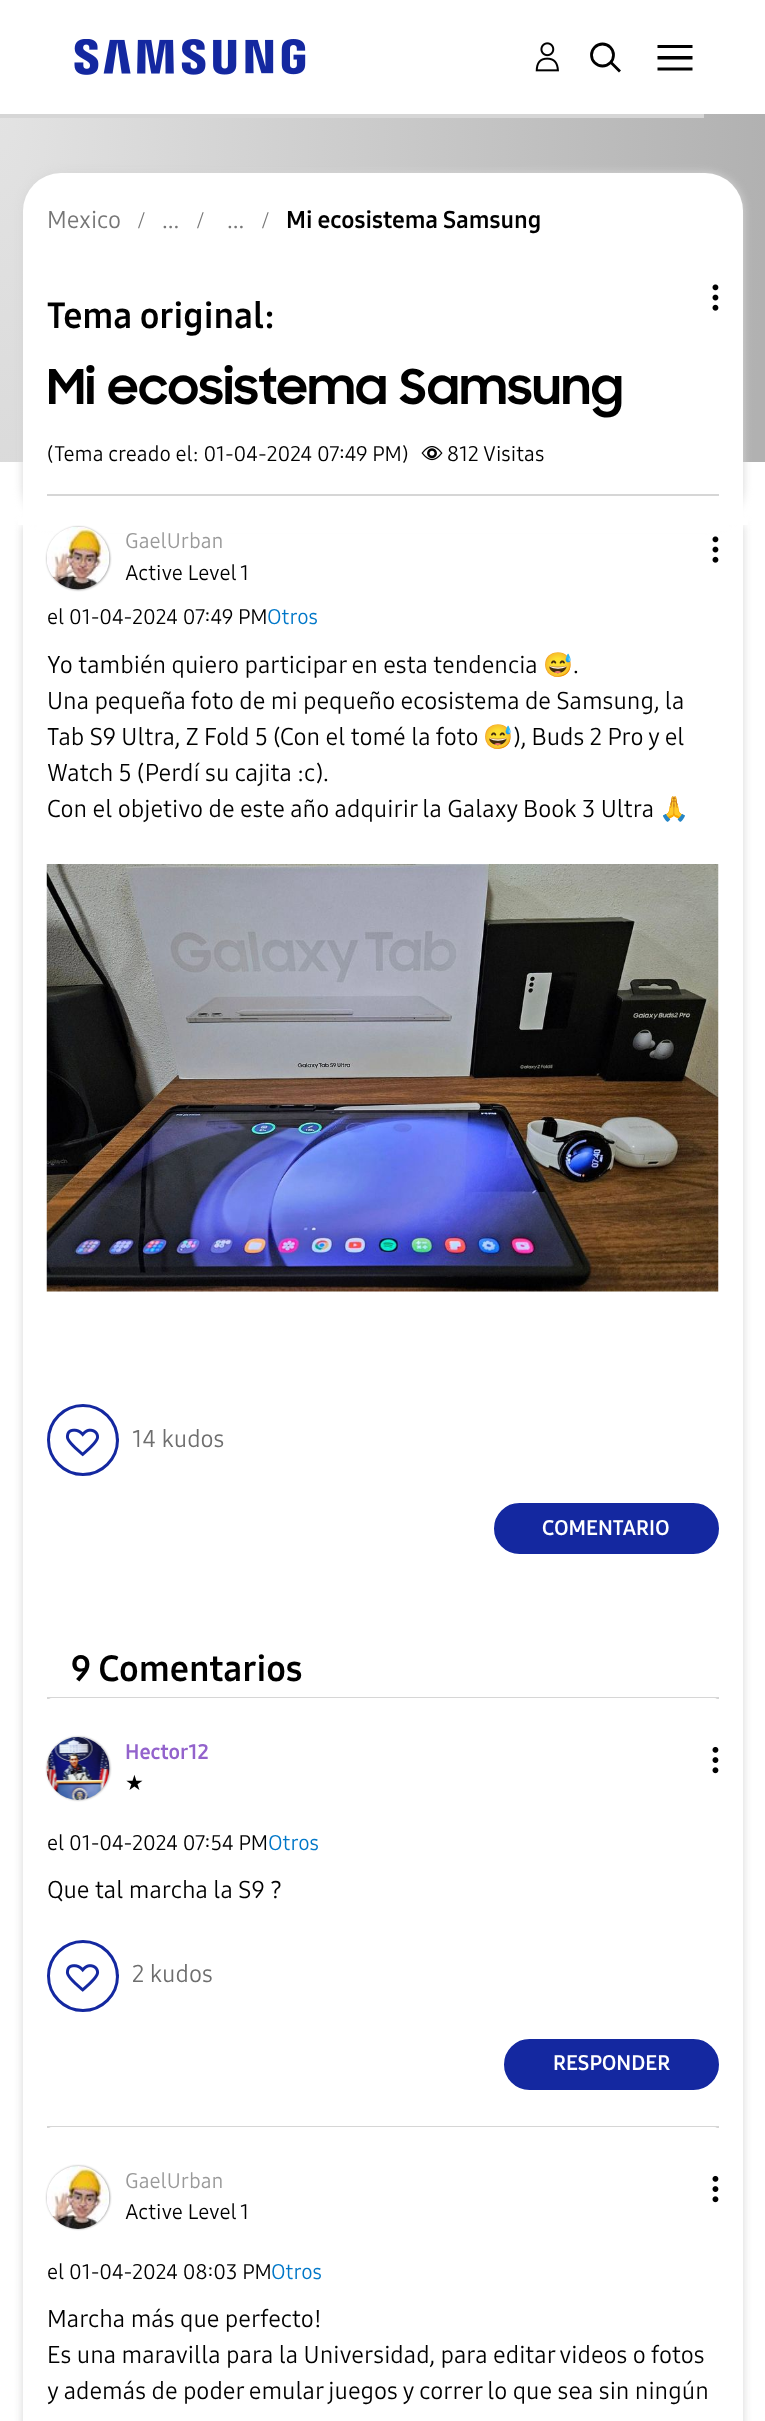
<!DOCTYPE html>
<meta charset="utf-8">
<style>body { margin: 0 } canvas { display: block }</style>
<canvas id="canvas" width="765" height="2421"></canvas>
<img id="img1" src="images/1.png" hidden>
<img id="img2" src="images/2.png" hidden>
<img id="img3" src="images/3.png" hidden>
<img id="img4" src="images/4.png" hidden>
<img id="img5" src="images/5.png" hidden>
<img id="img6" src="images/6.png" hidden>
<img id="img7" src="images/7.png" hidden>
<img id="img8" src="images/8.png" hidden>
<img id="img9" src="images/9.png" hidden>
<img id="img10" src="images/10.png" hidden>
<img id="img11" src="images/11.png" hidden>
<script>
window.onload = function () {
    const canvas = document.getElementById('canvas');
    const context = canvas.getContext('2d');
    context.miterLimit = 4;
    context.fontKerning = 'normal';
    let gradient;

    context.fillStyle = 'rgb(255, 255, 255)';
    context.fillRect(0, 0, 765, 2421);
    context.save();
    context.beginPath();
    context.moveTo(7, 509);
    context.lineTo(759, 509);
    context.lineTo(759, 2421);
    context.lineTo(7, 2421);
    context.closePath();
    context.moveTo(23, 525);
    context.lineTo(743, 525);
    context.lineTo(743, 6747);
    context.lineTo(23, 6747);
    context.closePath();
    context.clip('evenodd');
    context.fillStyle = 'rgb(214, 214, 214)';
    context.filter = 'blur(5px)';
    context.beginPath();
    context.rect(23, 525, 720, 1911);
    context.fill();
    context.filter = 'none';
    context.restore();
    context.fillRect(18, 517, 730, 8);
    context.drawImage(document.getElementById('img1'), 74, 39, 232, 36);
    context.drawImage(document.getElementById('img2'), 535, 42, 24, 30);
    context.beginPath();
    context.arc(602.5, 55, 11, 0, 2 * Math.PI);
    context.strokeStyle = 'rgb(0, 0, 0)';
    context.lineWidth = 2.8;
    context.stroke();
    context.beginPath();
    context.moveTo(612, 63.5);
    context.lineTo(619, 70.5);
    context.lineCap = 'square';
    context.stroke();
    context.fillStyle = 'rgb(0, 0, 0)';
    context.beginPath();
    context.moveTo(692.5, 67.5);
    context.lineTo(692.5, 70.5);
    context.lineTo(657.5, 70.5);
    context.lineTo(657.5, 67.5);
    context.closePath();
    context.moveTo(692.5, 56);
    context.lineTo(692.5, 59.5);
    context.lineTo(657.5, 59.5);
    context.lineTo(657.5, 56);
    context.closePath();
    context.moveTo(692.5, 45);
    context.lineTo(692.5, 48);
    context.lineTo(657.5, 48);
    context.lineTo(657.5, 45);
    context.closePath();
    context.fill();
    gradient = context.createRadialGradient(0, 36.12, 0, 0, 36.12, 765);
    gradient.addColorStop(0, 'rgb(227, 227, 227)');
    gradient.addColorStop(1, 'rgb(177, 177, 177)');
    context.fillStyle = gradient;
    context.beginPath();
    context.rect(0, 114, 765, 348);
    context.save();
    context.clip();
    context.scale(1, 2160 / 765);
    context.fillRect(0, 0, 765, 858);
    context.restore();
    context.fillStyle = 'rgb(214, 214, 214)';
    context.fillRect(0, 114, 704, 4);
    context.filter = 'blur(5px)';
    context.beginPath();
    context.roundRect(23, 173, 720, 352, 38);
    context.fill();
    context.filter = 'none';
    context.fillStyle = 'rgb(255, 255, 255)';
    context.beginPath();
    context.roundRect(23, 173, 720, 352, [38, 38, 0, 0]);
    context.fill();
    context.fillStyle = 'rgb(214, 214, 214)';
    context.fillRect(47, 494, 672, 2);
    context.drawImage(document.getElementById('img3'), 712, 284, 7, 27);
    context.drawImage(document.getElementById('img4'), 421, 446, 22, 15);
    context.fillStyle = 'rgb(255, 255, 255)';
    context.fillRect(37, 525, 692, 6);
    context.fillRect(53, 531, 661, 2);
    context.fillStyle = 'rgb(153, 153, 153)';
    context.filter = 'blur(1px)';
    context.beginPath();
    context.roundRect(47, 527, 63, 63, 31.5);
    context.fill();
    context.filter = 'none';
    context.drawImage(document.getElementById('img5'), 47, 527, 63, 63);
    context.drawImage(document.getElementById('img3'), 712, 536, 7, 27);
    context.drawImage(document.getElementById('img6'), 46, 864, 673, 428);
    context.beginPath();
    context.arc(83, 1440, 34.5, 0, 2 * Math.PI);
    context.strokeStyle = 'rgb(20, 40, 160)';
    context.lineWidth = 3;
    context.stroke();
    context.drawImage(document.getElementById('img7'), 65, 1428, 34, 29);
    context.fillStyle = 'rgb(20, 40, 160)';
    context.beginPath();
    context.roundRect(495, 1504, 223, 49, 24.5);
    context.fill();
    context.lineWidth = 2;
    context.stroke();
    context.fillStyle = 'rgb(214, 214, 214)';
    context.fillRect(47, 1697, 672, 2);
    context.fillStyle = 'rgb(255, 255, 255)';
    context.beginPath();
    context.roundRect(47, 1698, 672, 428, 5);
    context.fill();
    context.fillStyle = 'rgb(153, 153, 153)';
    context.filter = 'blur(1px)';
    context.beginPath();
    context.roundRect(47, 1737, 63, 63, 31.5);
    context.fill();
    context.filter = 'none';
    context.drawImage(document.getElementById('img8'), 46, 1737, 64, 63);
    context.drawImage(document.getElementById('img9'), 712, 1746, 7, 28);
    context.beginPath();
    context.arc(83, 1976, 34.5, 0, 2 * Math.PI);
    context.lineWidth = 3;
    context.stroke();
    context.drawImage(document.getElementById('img10'), 65, 1964, 35, 28);
    context.fillStyle = 'rgb(20, 40, 160)';
    context.beginPath();
    context.roundRect(505, 2040, 213, 49, 24.5);
    context.fill();
    context.lineWidth = 2;
    context.stroke();
    context.fillStyle = 'rgb(214, 214, 214)';
    context.fillRect(47, 2126, 672, 2);
    context.fillStyle = 'rgb(255, 255, 255)';
    context.beginPath();
    context.roundRect(47, 2127, 672, 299, 5);
    context.fill();
    context.fillStyle = 'rgb(153, 153, 153)';
    context.filter = 'blur(1px)';
    context.beginPath();
    context.roundRect(47, 2166, 63, 63, 31.5);
    context.fill();
    context.filter = 'none';
    context.drawImage(document.getElementById('img11'), 47, 2166, 63, 63);
    context.drawImage(document.getElementById('img9'), 712, 2175, 7, 28);
    context.font = '24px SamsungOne';
    context.fillStyle = 'rgb(118, 118, 118)';
    context.fillText('Mexico', 47, 228);
    context.font = '24px Liberation Serif';
    context.fillText('/', 138, 228);
    context.font = '24px SamsungOne';
    context.fillText('...', 162, 228);
    context.font = '24px Liberation Serif';
    context.fillText('/', 197, 228);
    context.font = '24px SamsungOne';
    context.fillText('...', 227, 228);
    context.font = '24px Liberation Serif';
    context.fillText('/', 262, 228);
    context.font = 'bold 24px SamsungOne';
    context.fillStyle = 'rgb(0, 0, 0)';
    context.fillText('Mi ecosistema Samsung', 286, 228);
    context.font = 'bold 36px SamsungOne';
    context.fillText('Tema original:', 47, 328);
    context.font = 'bold 48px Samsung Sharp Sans';
    context.fillText('Mi ecosistema Samsung', 47, 404);
    context.font = '21px SamsungOne';
    context.fillText('(Tema creado el: 01-04-2024 07:49 PM)', 47, 461);
    context.fillText('812 Visitas', 447, 461);
    context.fillStyle = 'rgb(153, 153, 153)';
    context.fillText('GaelUrban', 125, 548);
    context.fillStyle = 'rgb(0, 0, 0)';
    context.fillText('Active Level 1', 125, 580);
    context.fillText('el 01-04-2024 07:49 PM', 47, 624);
    context.fillStyle = 'rgb(0, 119, 200)';
    context.fillText('Otros', 267, 624);
    context.font = '24px SamsungOne';
    context.fillStyle = 'rgb(0, 0, 0)';
    context.fillText('Yo también quiero participar en esta tendencia', 47, 673);
    context.font = '24px Noto Color Emoji';
    context.fillText('😅', 543, 673);
    context.font = '24px SamsungOne';
    context.fillText('.', 573, 673);
    context.fillText('Una pequeña foto de mi pequeño ecosistema de Samsung, la', 47, 709);
    context.fillText('Tab S9 Ultra, Z Fold 5 (Con el tomé la foto', 47, 745);
    context.font = '24px Noto Color Emoji';
    context.fillText('😅', 483, 745);
    context.font = '24px SamsungOne';
    context.fillText('), Buds 2 Pro y el', 513, 745);
    context.fillText('Watch 5 (Perdí su cajita :c).', 47, 781);
    context.fillText('Con el objetivo de este año adquirir la Galaxy Book 3 Ultra', 47, 817);
    context.font = '24px Noto Color Emoji';
    context.fillText('🙏', 659, 817);
    context.font = '24px SamsungOne';
    context.fillStyle = 'rgb(110, 110, 110)';
    context.fillText('14 kudos', 132, 1447);
    context.font = 'bold 21px SamsungOne';
    context.fillStyle = 'rgb(255, 255, 255)';
    context.fillText('COMENTARIO', 542, 1535);
    context.font = 'bold 36px SamsungOne';
    context.fillStyle = 'rgb(0, 0, 0)';
    context.fillText('9 Comentarios', 71, 1681);
    context.font = 'bold 21px SamsungOne';
    context.fillStyle = 'rgb(147, 99, 204)';
    context.fillText('Hector12', 125, 1759);
    context.font = '21px DejaVu Sans';
    context.fillStyle = 'rgb(0, 0, 0)';
    context.fillText('★', 125, 1790);
    context.font = '21px SamsungOne';
    context.fillText('el 01-04-2024 07:54 PM', 47, 1850);
    context.fillStyle = 'rgb(0, 119, 200)';
    context.fillText('Otros', 268, 1850);
    context.font = '24px SamsungOne';
    context.fillStyle = 'rgb(0, 0, 0)';
    context.fillText('Que tal marcha la S9 ?', 47, 1898);
    context.fillStyle = 'rgb(110, 110, 110)';
    context.fillText('2 kudos', 132, 1982);
    context.font = 'bold 21px SamsungOne';
    context.fillStyle = 'rgb(255, 255, 255)';
    context.fillText('RESPONDER', 553, 2070);
    context.font = '21px SamsungOne';
    context.fillStyle = 'rgb(153, 153, 153)';
    context.fillText('GaelUrban', 125, 2188);
    context.fillStyle = 'rgb(0, 0, 0)';
    context.fillText('Active Level 1', 125, 2219);
    context.fillText('el 01-04-2024 08:03 PM', 47, 2279);
    context.fillStyle = 'rgb(0, 119, 200)';
    context.fillText('Otros', 271, 2279);
    context.font = '24px SamsungOne';
    context.fillStyle = 'rgb(0, 0, 0)';
    context.fillText('Marcha más que perfecto!', 47, 2327);
    context.fillText('Es una maravilla para la Universidad, para editar videos o fotos', 47, 2363);
    context.fillText('y además de poder emular juegos y correr lo que sea sin ningún', 47, 2399);
};
</script>
